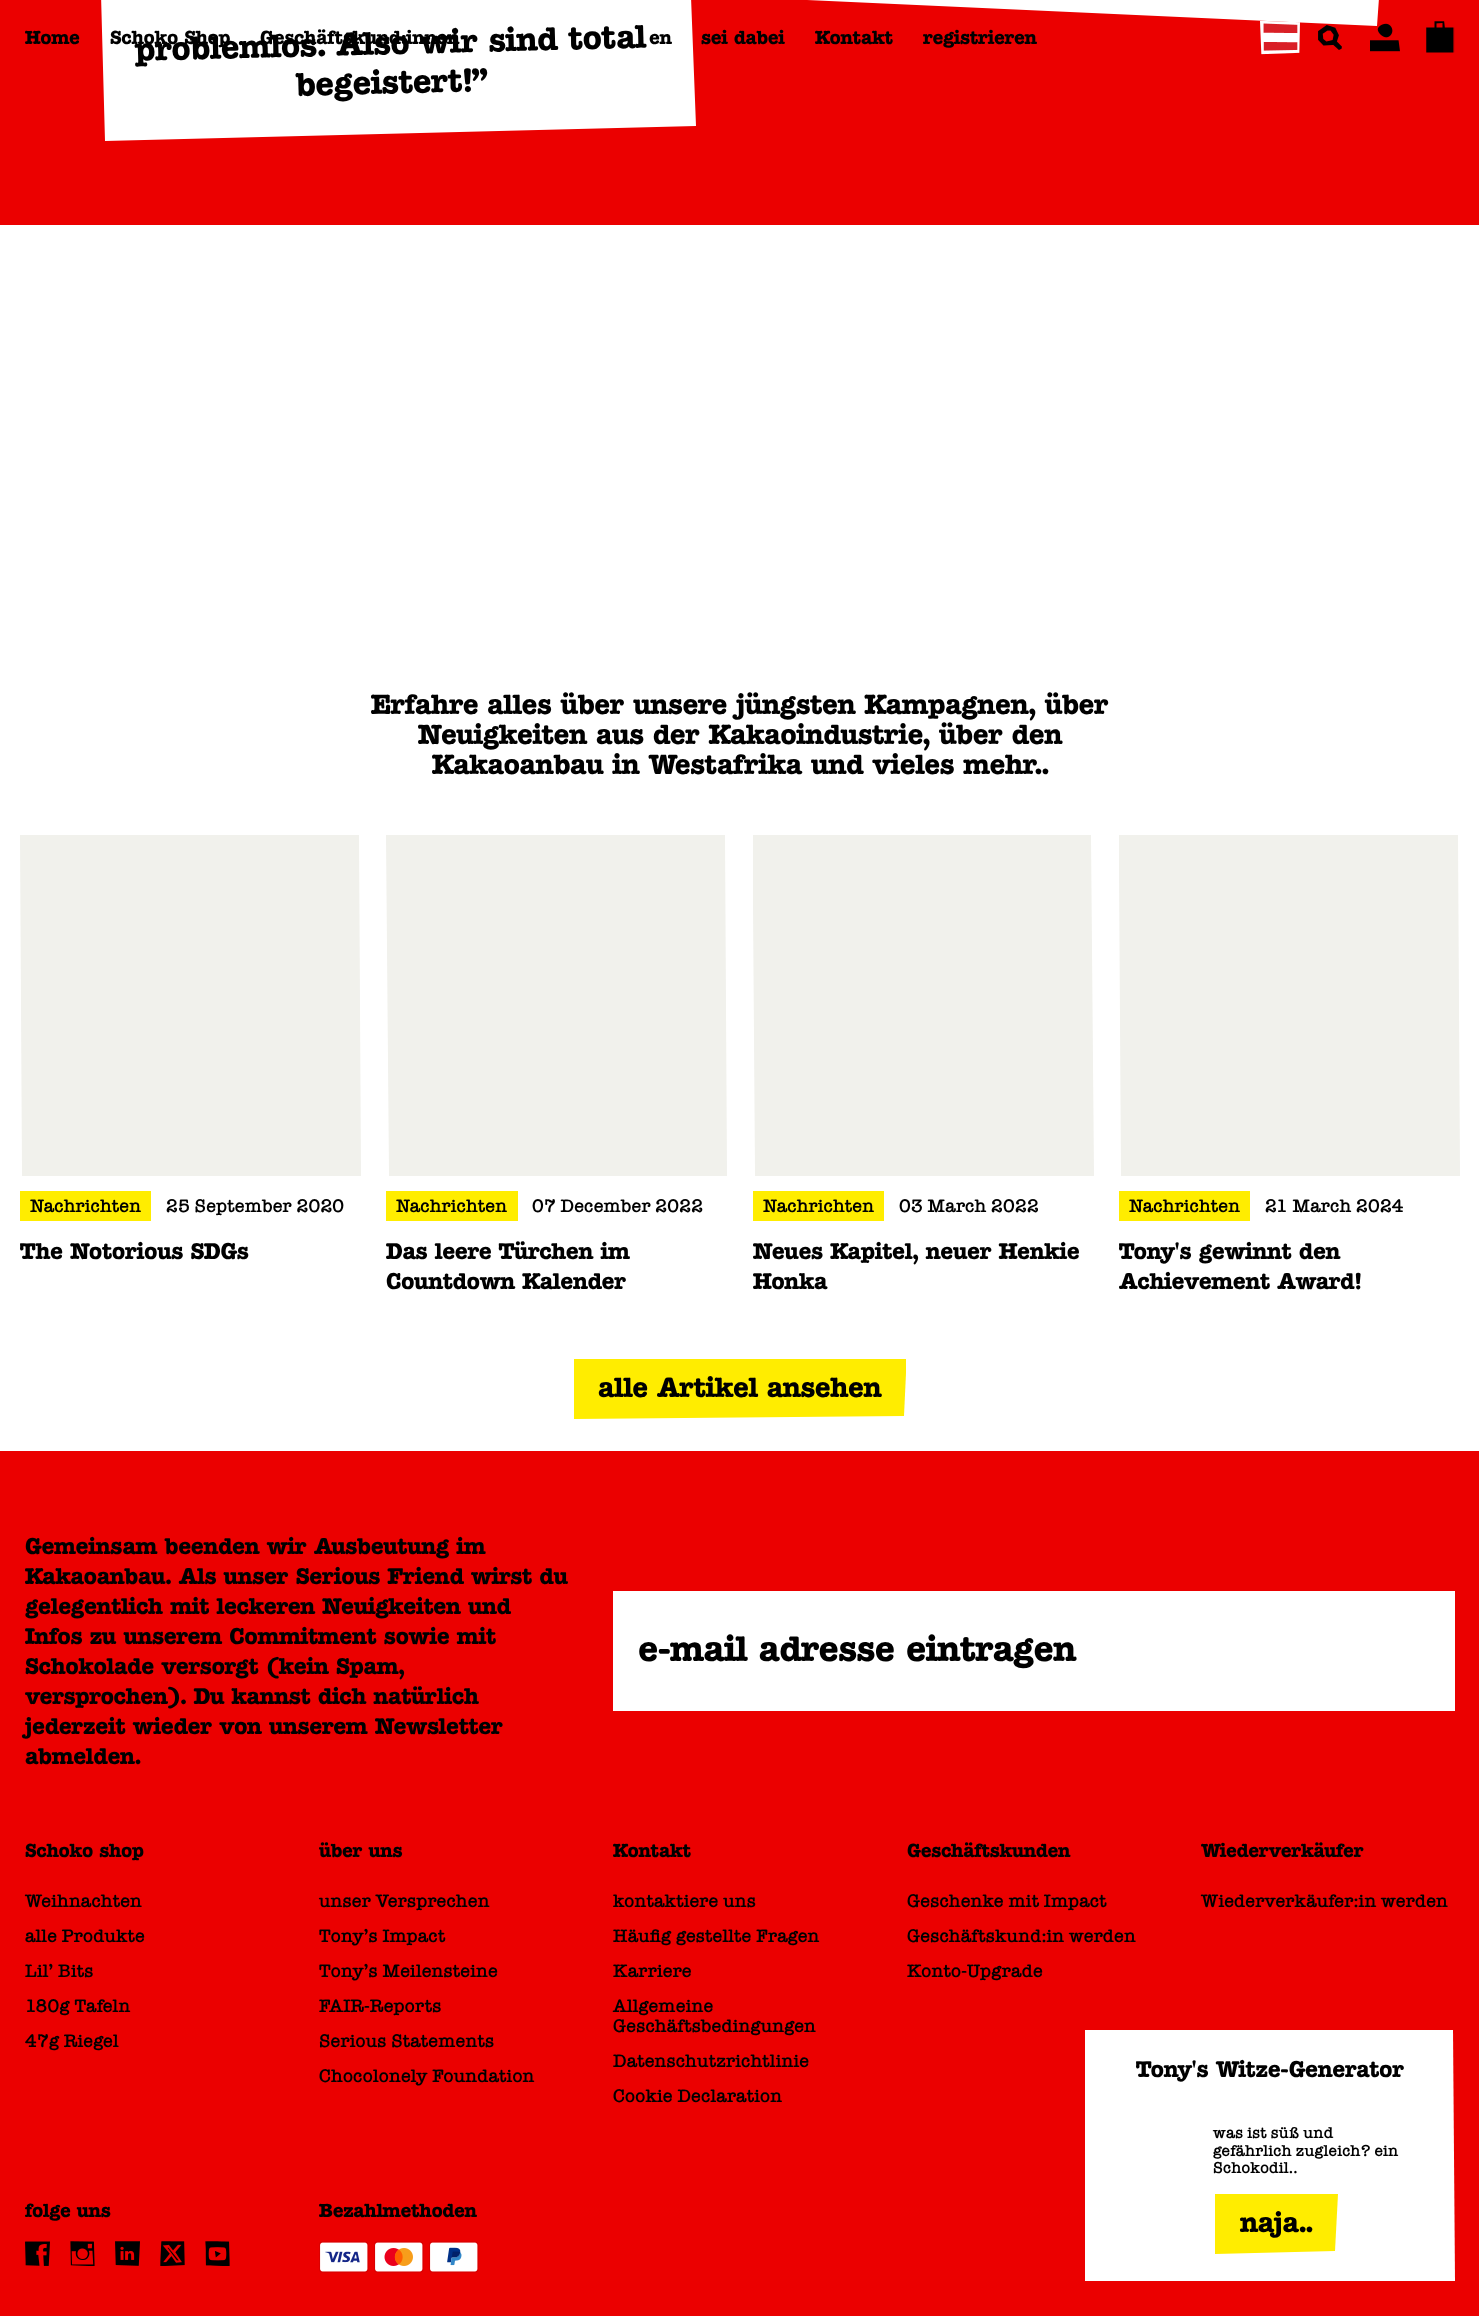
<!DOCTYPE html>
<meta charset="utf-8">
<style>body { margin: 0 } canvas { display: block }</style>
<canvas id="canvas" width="1479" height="2316"></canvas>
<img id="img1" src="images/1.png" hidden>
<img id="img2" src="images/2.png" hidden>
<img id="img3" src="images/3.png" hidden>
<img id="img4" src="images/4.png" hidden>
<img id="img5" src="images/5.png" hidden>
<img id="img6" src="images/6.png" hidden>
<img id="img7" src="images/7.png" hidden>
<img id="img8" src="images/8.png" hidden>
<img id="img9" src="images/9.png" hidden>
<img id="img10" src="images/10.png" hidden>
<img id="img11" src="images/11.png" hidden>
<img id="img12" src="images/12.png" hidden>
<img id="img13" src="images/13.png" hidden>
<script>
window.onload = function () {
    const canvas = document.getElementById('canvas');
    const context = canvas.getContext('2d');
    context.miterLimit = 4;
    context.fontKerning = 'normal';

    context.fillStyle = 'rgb(255, 255, 255)';
    context.fillRect(0, 0, 1479, 2316);
    context.fillStyle = 'rgb(235, 0, 0)';
    context.fillRect(0, 0, 1479, 225);
    context.fillStyle = 'rgb(255, 255, 255)';
    context.beginPath();
    context.moveTo(1454, -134);
    context.lineTo(1382, -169);
    context.lineTo(1386, -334);
    context.lineTo(795, -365);
    context.lineTo(785, -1);
    context.lineTo(1377, 26);
    context.lineTo(1388, -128);
    context.closePath();
    context.fill();
    context.beginPath();
    context.moveTo(27, -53);
    context.lineTo(97, -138);
    context.lineTo(92, -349);
    context.lineTo(677, -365);
    context.lineTo(696, 126);
    context.lineTo(105, 141);
    context.lineTo(99, -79);
    context.closePath();
    context.fill();
    context.fillStyle = 'rgb(241, 241, 236)';
    context.beginPath();
    context.moveTo(20, 835);
    context.lineTo(359, 835);
    context.lineTo(361, 1176);
    context.lineTo(22, 1176);
    context.closePath();
    context.fill();
    context.fillStyle = 'rgb(255, 237, 0)';
    context.fillRect(20, 1191, 131, 30);
    context.fillStyle = 'rgb(241, 241, 236)';
    context.beginPath();
    context.moveTo(389, 1176);
    context.lineTo(386, 835);
    context.lineTo(725, 835);
    context.lineTo(727, 1176);
    context.closePath();
    context.fill();
    context.fillStyle = 'rgb(255, 237, 0)';
    context.fillRect(386, 1191, 132, 30);
    context.fillStyle = 'rgb(241, 241, 236)';
    context.beginPath();
    context.moveTo(753, 835);
    context.lineTo(1091, 835);
    context.lineTo(1094, 1176);
    context.lineTo(755, 1176);
    context.lineTo(753, 903);
    context.closePath();
    context.fill();
    context.fillStyle = 'rgb(255, 237, 0)';
    context.fillRect(753, 1191, 131, 30);
    context.fillStyle = 'rgb(241, 241, 236)';
    context.beginPath();
    context.moveTo(1119, 835);
    context.lineTo(1458, 835);
    context.lineTo(1460, 1176);
    context.lineTo(1121, 1176);
    context.lineTo(1119, 869);
    context.closePath();
    context.fill();
    context.fillStyle = 'rgb(255, 237, 0)';
    context.fillRect(1119, 1191, 131, 30);
    context.beginPath();
    context.moveTo(574, 1359);
    context.lineTo(906, 1359);
    context.lineTo(906, 1373);
    context.lineTo(904, 1416);
    context.lineTo(574, 1419);
    context.closePath();
    context.fill();
    context.fillStyle = 'rgb(235, 0, 0)';
    context.fillRect(0, 1451, 1479, 865);
    context.fillStyle = 'rgb(255, 255, 255)';
    context.fillRect(613, 1591, 842, 120);
    context.drawImage(document.getElementById('img1'), 25, 2241, 25, 25);
    context.drawImage(document.getElementById('img2'), 70, 2241, 25, 25);
    context.drawImage(document.getElementById('img3'), 115, 2241, 25, 25);
    context.drawImage(document.getElementById('img4'), 160, 2241, 25, 25);
    context.drawImage(document.getElementById('img5'), 205, 2241, 25, 25);
    context.drawImage(document.getElementById('img6'), 319, 2241, 50, 32);
    context.drawImage(document.getElementById('img7'), 374, 2241, 50, 32);
    context.drawImage(document.getElementById('img8'), 429, 2241, 50, 32);
    context.beginPath();
    context.moveTo(1085, 2030);
    context.lineTo(1085, 2281);
    context.lineTo(1455, 2281);
    context.lineTo(1453, 2030);
    context.closePath();
    context.fill();
    context.fillStyle = 'rgb(255, 237, 0)';
    context.beginPath();
    context.moveTo(1215, 2194);
    context.lineTo(1215, 2254);
    context.lineTo(1335, 2251);
    context.lineTo(1338, 2194);
    context.closePath();
    context.fill();
    context.drawImage(document.getElementById('img9'), 1260, 20, 40, 35);
    context.drawImage(document.getElementById('img10'), 1318, 25, 24, 25);
    context.drawImage(document.getElementById('img11'), 1370, 23, 30, 29);
    context.drawImage(document.getElementById('img12'), 1434, 21, 11, 7);
    context.drawImage(document.getElementById('img13'), 1426, 27, 29, 26);
    context.font = 'bold 32.5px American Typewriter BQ';
    context.fillStyle = 'rgb(0, 0, 0)';
    context.save();
    context.translate(135, 61);
    context.rotate(-1.5 * Math.PI / 180);
    context.fillText('problemlos. Also wir sind total', 0, 0);
    context.restore();
    context.save();
    context.translate(296, 96);
    context.rotate(-1.5 * Math.PI / 180);
    context.fillText('begeistert!”', 0, 0);
    context.restore();
    context.font = 'bold 27.5px American Typewriter BQ';
    context.fillText('Erfahre alles über unsere jüngsten Kampagnen, über', 371, 714);
    context.fillText('Neuigkeiten aus der Kakaoindustrie, über den', 418, 744);
    context.fillText('Kakaoanbau in Westafrika und vieles mehr..', 432, 774);
    context.font = '600 18.75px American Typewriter';
    context.fillText('Nachrichten', 30, 1212);
    context.fillText('25 September 2020', 166, 1212);
    context.font = 'bold 22.5px American Typewriter BQ';
    context.fillText('The Notorious SDGs', 20, 1259);
    context.font = '600 18.75px American Typewriter';
    context.fillText('Nachrichten', 396, 1212);
    context.fillText('07 December 2022', 532, 1212);
    context.font = 'bold 22.5px American Typewriter BQ';
    context.fillText('Das leere Türchen im', 386, 1259);
    context.fillText('Countdown Kalender', 386, 1289);
    context.font = '600 18.75px American Typewriter';
    context.fillText('Nachrichten', 763, 1212);
    context.fillText('03 March 2022', 899, 1212);
    context.font = 'bold 22.5px American Typewriter BQ';
    context.fillText('Neues Kapitel, neuer Henkie', 753, 1259);
    context.fillText('Honka', 753, 1289);
    context.font = '600 18.75px American Typewriter';
    context.fillText('Nachrichten', 1129, 1212);
    context.fillText('21 March 2024', 1265, 1212);
    context.font = 'bold 22.5px American Typewriter BQ';
    context.fillText('Tony\'s gewinnt den', 1119, 1259);
    context.fillText('Achievement Award!', 1119, 1289);
    context.font = 'bold 27.5px American Typewriter BQ';
    context.fillText('alle Artikel ansehen', 598, 1397);
    context.font = 'bold 22.5px American Typewriter BQ';
    context.fillText('Gemeinsam beenden wir Ausbeutung im', 25, 1554);
    context.fillText('Kakaoanbau. Als unser Serious Friend wirst du', 25, 1584);
    context.fillText('gelegentlich mit leckeren Neuigkeiten und', 25, 1614);
    context.fillText('Infos zu unserem Commitment sowie mit', 25, 1644);
    context.fillText('Schokolade versorgt (kein Spam,', 25, 1674);
    context.fillText('versprochen). Du kannst dich natürlich', 25, 1704);
    context.fillText('jederzeit wieder von unserem Newsletter', 25, 1734);
    context.fillText('abmelden.', 25, 1764);
    context.font = 'bold 35px American Typewriter BQ';
    context.fillText('e-mail adresse eintragen', 638, 1661);
    context.font = 'bold 18.75px American Typewriter BQ';
    context.fillText('Schoko shop', 25, 1857);
    context.font = '600 18.75px American Typewriter';
    context.fillText('Weihnachten', 25, 1907);
    context.fillText('alle Produkte', 25, 1942);
    context.fillText('Lil’ Bits', 25, 1977);
    context.fillText('180g Tafeln', 25, 2012);
    context.fillText('47g Riegel', 25, 2047);
    context.font = 'bold 18.75px American Typewriter BQ';
    context.fillText('über uns', 319, 1857);
    context.font = '600 18.75px American Typewriter';
    context.fillText('unser Versprechen', 319, 1907);
    context.fillText('Tony’s Impact', 319, 1942);
    context.fillText('Tony’s Meilensteine', 319, 1977);
    context.fillText('FAIR-Reports', 319, 2012);
    context.fillText('Serious Statements', 319, 2047);
    context.fillText('Chocolonely Foundation', 319, 2082);
    context.font = 'bold 18.75px American Typewriter BQ';
    context.fillText('Kontakt', 613, 1857);
    context.font = '600 18.75px American Typewriter';
    context.fillText('kontaktiere uns', 613, 1907);
    context.fillText('Häufig gestellte Fragen', 613, 1942);
    context.fillText('Karriere', 613, 1977);
    context.fillText('Allgemeine', 613, 2012);
    context.fillText('Geschäftsbedingungen', 613, 2032);
    context.fillText('Datenschutzrichtlinie', 613, 2067);
    context.fillText('Cookie Declaration', 613, 2102);
    context.font = 'bold 18.75px American Typewriter BQ';
    context.fillText('Geschäftskunden', 907, 1857);
    context.font = '600 18.75px American Typewriter';
    context.fillText('Geschenke mit Impact', 907, 1907);
    context.fillText('Geschäftskund:in werden', 907, 1942);
    context.fillText('Konto-Upgrade', 907, 1977);
    context.font = 'bold 18.75px American Typewriter BQ';
    context.fillText('Wiederverkäufer', 1201, 1857);
    context.font = '600 18.75px American Typewriter';
    context.fillText('Wiederverkäufer:in werden', 1201, 1907);
    context.font = 'bold 18.75px American Typewriter BQ';
    context.fillText('folge uns', 25, 2217);
    context.fillText('Bezahlmethoden', 319, 2217);
    context.font = 'bold 22.5px American Typewriter BQ';
    context.fillText('Tony\'s Witze-Generator', 1136, 2077);
    context.font = '600 16.25px American Typewriter';
    context.fillText('was ist süß und', 1213, 2138);
    context.fillText('gefährlich zugleich? ein', 1213, 2156);
    context.fillText('Schokodil..', 1213, 2173);
    context.font = 'bold 27.5px American Typewriter BQ';
    context.fillText('naja..', 1240, 2232);
    context.font = 'bold 18.75px American Typewriter BQ';
    context.fillText('Home', 25, 44);
    context.fillText('Schoko Shop', 110, 44);
    context.fillText('Geschäftskund:innen', 260, 44);
    context.fillText('en', 649, 44);
    context.fillText('sei dabei', 701, 44);
    context.fillText('Kontakt', 815, 44);
    context.fillText('registrieren', 923, 44);
};
</script>
